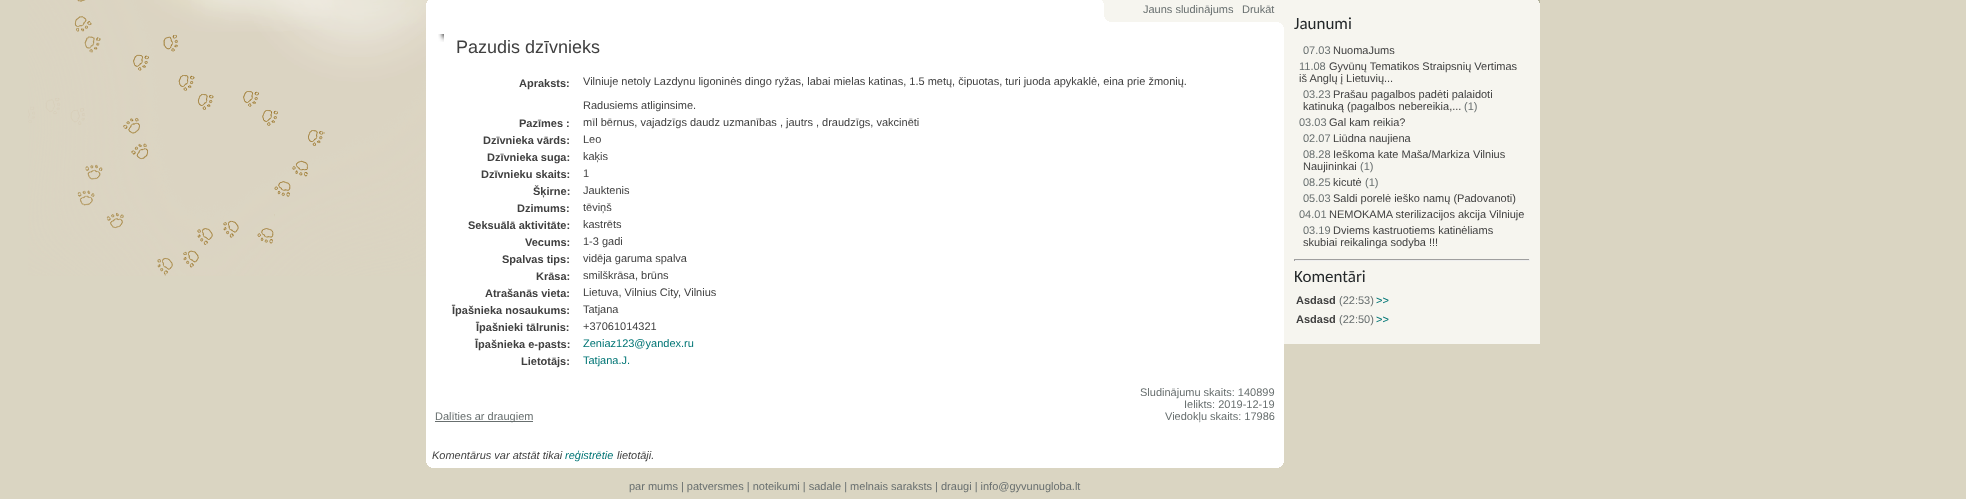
<!DOCTYPE html>
<meta charset="utf-8">
<style>body { margin: 0 } canvas { display: block }</style>
<canvas id="canvas" width="1966" height="499"></canvas>
<img id="img1" src="images/1.png" hidden>
<img id="img2" src="images/2.png" hidden>
<script>
window.onload = function () {
    const canvas = document.getElementById('canvas');
    const context = canvas.getContext('2d');
    context.miterLimit = 4;
    context.fontKerning = 'normal';

    context.fillStyle = 'rgb(218, 213, 194)';
    context.fillRect(0, 0, 1966, 499);
    context.drawImage(document.getElementById('img1'), 28, 0, 400, 276);
    context.fillStyle = 'rgb(255, 255, 255)';
    context.fillRect(428, 0, 674, 1);
    context.fillStyle = 'rgb(246, 245, 239)';
    context.fillRect(1102, 0, 2, 3);
    context.fillStyle = 'rgb(255, 255, 255)';
    context.fillRect(427, 1, 676, 2);
    context.fillRect(426, 3, 678, 19);
    context.fillRect(1104, 17, 5, 5);
    context.fillStyle = 'rgb(246, 245, 239)';
    context.fillRect(1104, 0, 39, 17);
    context.fillRect(1105, 17, 38, 2);
    context.fillRect(1106, 19, 37, 1);
    context.fillRect(1107, 20, 36, 1);
    context.fillRect(1109, 21, 34, 1);
    context.fillRect(1143, 0, 141, 22);
    context.fillRect(1279, 22, 5, 5);
    context.fillStyle = 'rgb(255, 255, 255)';
    context.fillRect(426, 22, 853, 1);
    context.fillRect(426, 23, 855, 1);
    context.fillRect(426, 24, 856, 1);
    context.fillRect(426, 25, 857, 2);
    context.fillRect(426, 27, 858, 436);
    context.drawImage(document.getElementById('img2'), 437, 34, 7, 8);
    context.fillStyle = 'rgb(104, 111, 111)';
    context.fillRect(435, 421, 98, 1);
    context.fillStyle = 'rgb(255, 255, 255)';
    context.fillRect(427, 463, 856, 2);
    context.fillRect(428, 465, 854, 1);
    context.fillRect(429, 466, 852, 1);
    context.fillRect(431, 467, 848, 1);
    context.fillStyle = 'rgb(246, 245, 239)';
    context.fillRect(1284, 0, 219, 3);
    context.fillStyle = 'rgb(178, 177, 154)';
    context.fillRect(1538, 0, 2, 3);
    context.fillStyle = 'rgb(246, 245, 239)';
    context.fillRect(1503, 0, 35, 1);
    context.fillRect(1503, 1, 36, 2);
    context.fillRect(1284, 3, 256, 341);
    context.fillStyle = 'rgb(159, 159, 159)';
    context.fillRect(1294, 259, 236, 1);
    context.fillStyle = 'rgb(238, 238, 238)';
    context.fillRect(1529, 259, 1, 2);
    context.fillRect(1294, 260, 236, 1);
    context.fillStyle = 'rgb(159, 159, 159)';
    context.fillRect(1294, 259, 1, 2);
    context.font = '11px Liberation Sans';
    context.fillStyle = 'rgb(104, 111, 111)';
    context.fillText('Jauns sludinājums', 1143, 13);
    context.fillText('Drukāt', 1242, 13);
    context.font = '18px Liberation Sans';
    context.fillStyle = 'rgb(64, 64, 64)';
    context.fillText('Pazudis dzīvnieks', 456, 53);
    context.font = 'bold 11px Liberation Sans';
    context.fillText('Apraksts:', 519, 87);
    context.font = '11px Liberation Sans';
    context.fillText('Vilniuje netoly Lazdynu ligoninės dingo ryžas, labai mielas katinas, 1.5 metų, čipuotas, turi juoda apykaklė, eina prie žmonių.', 583, 85);
    context.fillText('Radusiems atliginsime.', 583, 109);
    context.font = 'bold 11px Liberation Sans';
    context.fillText('Pazīmes :', 519, 127);
    context.font = '11px Liberation Sans';
    context.fillText('mīl bērnus, vajadzīgs daudz uzmanības , jautrs , draudzīgs, vakcinēti', 583, 126);
    context.font = 'bold 11px Liberation Sans';
    context.fillText('Dzīvnieka vārds:', 483, 144);
    context.font = '11px Liberation Sans';
    context.fillText('Leo', 583, 143);
    context.font = 'bold 11px Liberation Sans';
    context.fillText('Dzīvnieka suga:', 487, 161);
    context.font = '11px Liberation Sans';
    context.fillText('kaķis', 583, 160);
    context.font = 'bold 11px Liberation Sans';
    context.fillText('Dzīvnieku skaits:', 481, 178);
    context.font = '11px Liberation Sans';
    context.fillText('1', 583, 177);
    context.font = 'bold 11px Liberation Sans';
    context.fillText('Šķirne:', 533, 195);
    context.font = '11px Liberation Sans';
    context.fillText('Jauktenis', 583, 194);
    context.font = 'bold 11px Liberation Sans';
    context.fillText('Dzimums:', 517, 212);
    context.font = '11px Liberation Sans';
    context.fillText('tēviņš', 583, 211);
    context.font = 'bold 11px Liberation Sans';
    context.fillText('Seksuālā aktivitāte:', 468, 229);
    context.font = '11px Liberation Sans';
    context.fillText('kastrēts', 583, 228);
    context.font = 'bold 11px Liberation Sans';
    context.fillText('Vecums:', 525, 246);
    context.font = '11px Liberation Sans';
    context.fillText('1-3 gadi', 583, 245);
    context.font = 'bold 11px Liberation Sans';
    context.fillText('Spalvas tips:', 502, 263);
    context.font = '11px Liberation Sans';
    context.fillText('vidēja garuma spalva', 583, 262);
    context.font = 'bold 11px Liberation Sans';
    context.fillText('Krāsa:', 536, 280);
    context.font = '11px Liberation Sans';
    context.fillText('smilškrāsa, brūns', 583, 279);
    context.font = 'bold 11px Liberation Sans';
    context.fillText('Atrašanās vieta:', 485, 297);
    context.font = '11px Liberation Sans';
    context.fillText('Lietuva, Vilnius City, Vilnius', 583, 296);
    context.font = 'bold 11px Liberation Sans';
    context.fillText('Īpašnieka nosaukums:', 452, 314);
    context.font = '11px Liberation Sans';
    context.fillText('Tatjana', 583, 313);
    context.font = 'bold 11px Liberation Sans';
    context.fillText('Īpašnieki tālrunis:', 476, 331);
    context.font = '11px Liberation Sans';
    context.fillText('+37061014321', 583, 330);
    context.font = 'bold 11px Liberation Sans';
    context.fillText('Īpašnieka e-pasts:', 475, 348);
    context.font = '11px Liberation Sans';
    context.fillStyle = 'rgb(0, 117, 117)';
    context.fillText('Zeniaz123@yandex.ru', 583, 347);
    context.font = 'bold 11px Liberation Sans';
    context.fillStyle = 'rgb(64, 64, 64)';
    context.fillText('Lietotājs:', 521, 365);
    context.font = '11px Liberation Sans';
    context.fillStyle = 'rgb(0, 117, 117)';
    context.fillText('Tatjana.J.', 583, 364);
    context.fillStyle = 'rgb(104, 111, 111)';
    context.fillText('Dalīties ar draugiem', 435, 420);
    context.fillText('Sludinājumu skaits: 140899', 1140, 396);
    context.fillText('Ielikts: 2019-12-19', 1184, 408);
    context.fillText('Viedokļu skaits: 17986', 1165, 420);
    context.font = 'italic 11px Liberation Sans';
    context.fillStyle = 'rgb(64, 64, 64)';
    context.fillText('Komentārus var atstāt tikai', 432, 459);
    context.fillStyle = 'rgb(0, 117, 117)';
    context.fillText('reģistrētie', 565, 459);
    context.fillStyle = 'rgb(64, 64, 64)';
    context.fillText('lietotāji.', 617, 459);
    context.font = '11px Liberation Sans';
    context.fillStyle = 'rgb(104, 111, 111)';
    context.fillText('par mums | patversmes | noteikumi | sadale | melnais saraksts | draugi | info@gyvunugloba.lt', 629, 490);
    context.font = '17px Carlito';
    context.fillStyle = 'rgb(36, 40, 42)';
    context.fillText('Jaunumi', 1294, 29);
    context.font = '11px Liberation Sans';
    context.fillStyle = 'rgb(104, 111, 111)';
    context.fillText('07.03', 1303, 54);
    context.fillStyle = 'rgb(64, 64, 64)';
    context.fillText('NuomaJums', 1333, 54);
    context.fillStyle = 'rgb(104, 111, 111)';
    context.fillText('11.08', 1299, 70);
    context.fillStyle = 'rgb(64, 64, 64)';
    context.fillText('Gyvūnų Tematikos Straipsnių Vertimas', 1329, 70);
    context.fillText('iš Anglų į Lietuvių...', 1299, 82);
    context.fillStyle = 'rgb(104, 111, 111)';
    context.fillText('03.23', 1303, 98);
    context.fillStyle = 'rgb(64, 64, 64)';
    context.fillText('Prašau pagalbos padėti palaidoti', 1333, 98);
    context.fillText('katinuką (pagalbos nebereikia,...', 1303, 110);
    context.fillStyle = 'rgb(104, 111, 111)';
    context.fillText('(1)', 1464, 110);
    context.fillText('03.03', 1299, 126);
    context.fillStyle = 'rgb(64, 64, 64)';
    context.fillText('Gal kam reikia?', 1329, 126);
    context.fillStyle = 'rgb(104, 111, 111)';
    context.fillText('02.07', 1303, 142);
    context.fillStyle = 'rgb(64, 64, 64)';
    context.fillText('Liūdna naujiena', 1333, 142);
    context.fillStyle = 'rgb(104, 111, 111)';
    context.fillText('08.28', 1303, 158);
    context.fillStyle = 'rgb(64, 64, 64)';
    context.fillText('Ieškoma kate Maša/Markiza Vilnius', 1333, 158);
    context.fillText('Naujininkai', 1303, 170);
    context.fillStyle = 'rgb(104, 111, 111)';
    context.fillText('(1)', 1360, 170);
    context.fillText('08.25', 1303, 186);
    context.fillStyle = 'rgb(64, 64, 64)';
    context.fillText('kicutė', 1333, 186);
    context.fillStyle = 'rgb(104, 111, 111)';
    context.fillText('(1)', 1365, 186);
    context.fillText('05.03', 1303, 202);
    context.fillStyle = 'rgb(64, 64, 64)';
    context.fillText('Saldi porelė ieško namų (Padovanoti)', 1333, 202);
    context.fillStyle = 'rgb(104, 111, 111)';
    context.fillText('04.01', 1299, 218);
    context.fillStyle = 'rgb(64, 64, 64)';
    context.fillText('NEMOKAMA sterilizacijos akcija Vilniuje', 1329, 218);
    context.fillStyle = 'rgb(104, 111, 111)';
    context.fillText('03.19', 1303, 234);
    context.fillStyle = 'rgb(64, 64, 64)';
    context.fillText('Dviems kastruotiems katinėliams', 1333, 234);
    context.fillText('skubiai reikalinga sodyba !!!', 1303, 246);
    context.font = '17px Carlito';
    context.fillStyle = 'rgb(36, 40, 42)';
    context.fillText('Komentāri', 1294, 282);
    context.font = 'bold 11px Liberation Sans';
    context.fillStyle = 'rgb(64, 64, 64)';
    context.fillText('Asdasd', 1296, 304);
    context.font = '11px Liberation Sans';
    context.fillStyle = 'rgb(104, 111, 111)';
    context.fillText('(22:53)', 1339, 304);
    context.fillStyle = 'rgb(0, 117, 117)';
    context.fillText('>>', 1376, 304);
    context.font = 'bold 11px Liberation Sans';
    context.fillStyle = 'rgb(64, 64, 64)';
    context.fillText('Asdasd', 1296, 323);
    context.font = '11px Liberation Sans';
    context.fillStyle = 'rgb(104, 111, 111)';
    context.fillText('(22:50)', 1339, 323);
    context.fillStyle = 'rgb(0, 117, 117)';
    context.fillText('>>', 1376, 323);
};
</script>
